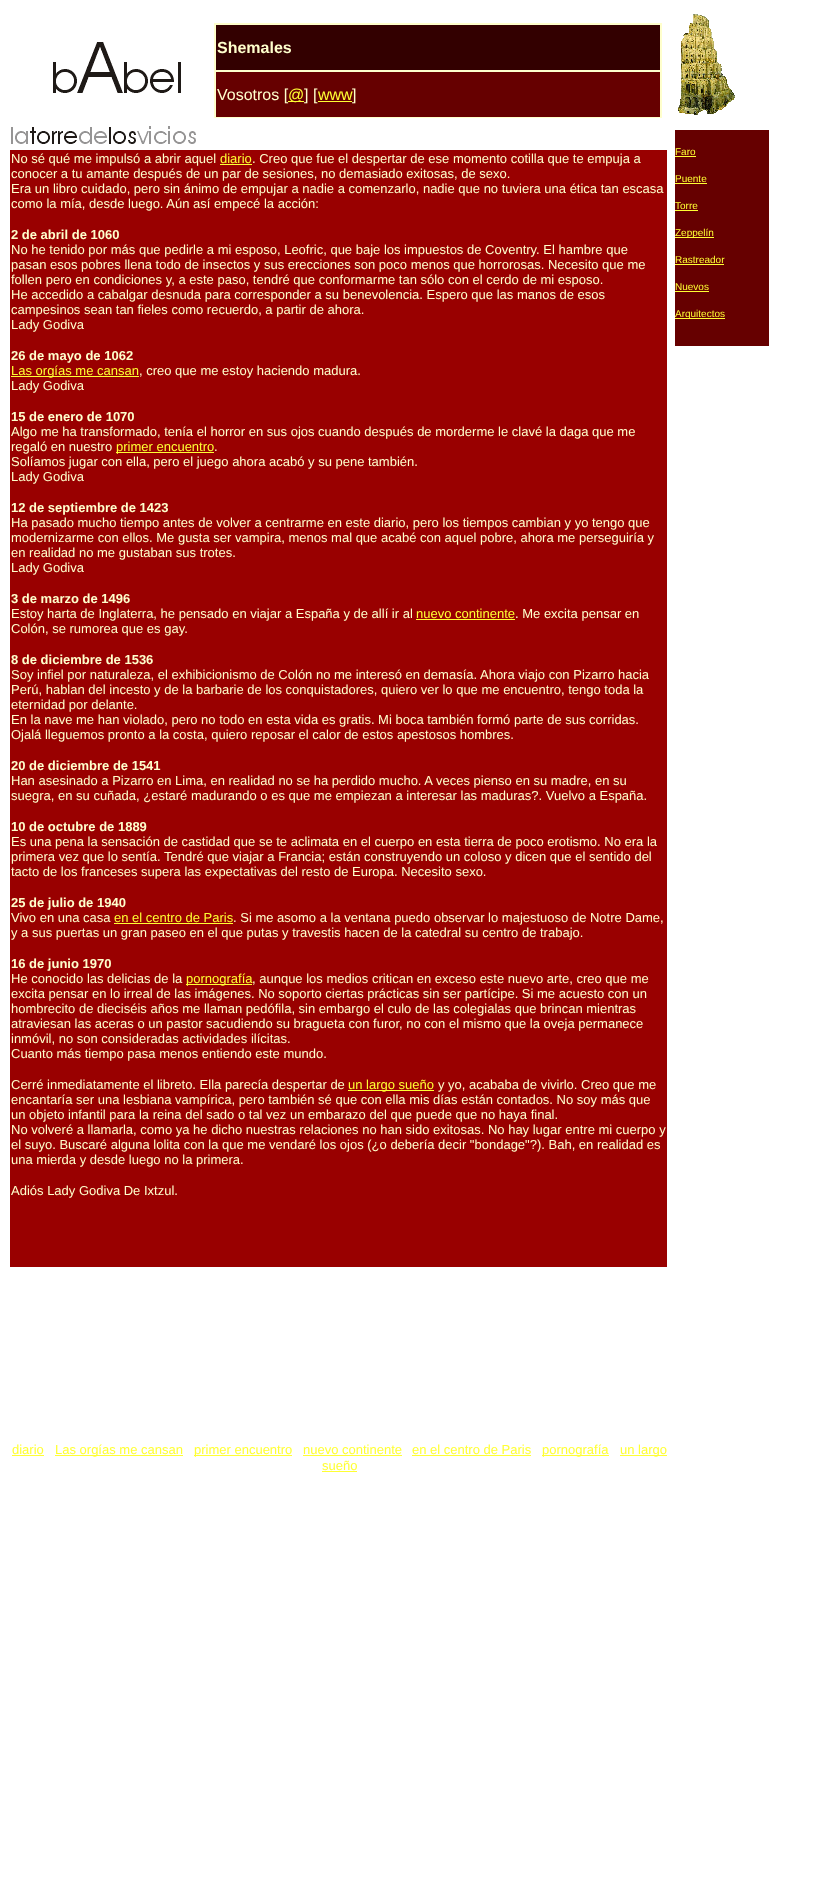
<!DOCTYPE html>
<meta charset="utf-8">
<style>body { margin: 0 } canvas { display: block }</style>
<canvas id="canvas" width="817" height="1902"></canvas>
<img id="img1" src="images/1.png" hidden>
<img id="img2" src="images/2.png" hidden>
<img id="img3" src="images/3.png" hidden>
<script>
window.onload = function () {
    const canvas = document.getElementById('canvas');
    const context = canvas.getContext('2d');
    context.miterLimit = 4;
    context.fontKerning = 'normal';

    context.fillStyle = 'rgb(255, 255, 255)';
    context.fillRect(0, 0, 817, 1902);
    context.drawImage(document.getElementById('img1'), 53, 42, 128, 51);
    context.fillStyle = 'rgb(255, 255, 204)';
    context.fillRect(214, 23, 448, 95);
    context.fillStyle = 'rgb(51, 0, 0)';
    context.fillRect(216, 25, 444, 45);
    context.fillStyle = 'rgb(102, 0, 0)';
    context.fillRect(216, 72, 444, 45);
    context.fillStyle = 'rgb(255, 255, 51)';
    context.fillRect(318, 101, 34, 1);
    context.drawImage(document.getElementById('img2'), 11, 126, 185, 18);
    context.fillStyle = 'rgb(153, 0, 0)';
    context.fillRect(10, 150, 657, 1117);
    context.fillStyle = 'rgb(255, 255, 51)';
    context.fillRect(220, 164, 32, 1);
    context.fillRect(11, 376, 128, 1);
    context.fillRect(116, 452, 98, 1);
    context.fillRect(416, 619, 99, 1);
    context.fillRect(114, 923, 119, 1);
    context.fillRect(186, 984, 66, 1);
    context.fillRect(348, 1090, 86, 1);
    context.drawImage(document.getElementById('img3'), 678, 14, 57, 101);
    context.fillStyle = 'rgb(102, 0, 0)';
    context.fillRect(675, 130, 94, 216);
    context.fillStyle = 'rgb(255, 255, 51)';
    context.fillRect(675, 156, 21, 1);
    context.fillRect(675, 183, 32, 1);
    context.fillRect(675, 210, 23, 1);
    context.fillRect(675, 237, 39, 1);
    context.fillRect(675, 264, 49, 1);
    context.fillRect(675, 291, 34, 1);
    context.fillRect(675, 318, 50, 1);
    context.fillRect(12, 1455, 32, 1);
    context.fillRect(55, 1455, 128, 1);
    context.fillRect(194, 1455, 98, 1);
    context.fillRect(303, 1455, 99, 1);
    context.fillRect(412, 1455, 119, 1);
    context.fillRect(542, 1455, 67, 1);
    context.fillRect(620, 1455, 47, 1);
    context.fillRect(322, 1471, 35, 1);
    context.font = 'bold 16px Liberation Sans';
    context.fillStyle = 'rgb(255, 255, 204)';
    context.fillText('Shemales', 217, 53);
    context.font = '16px Liberation Sans';
    context.fillText('Vosotros [', 217, 100);
    context.fillStyle = 'rgb(255, 255, 51)';
    context.fillRect(288, 101, 16, 1);
    context.fillText('@', 288, 100);
    context.fillStyle = 'rgb(255, 255, 204)';
    context.fillText('] [', 304, 100);
    context.fillStyle = 'rgb(255, 255, 51)';
    context.fillText('www', 318, 100);
    context.fillStyle = 'rgb(255, 255, 204)';
    context.fillText(']', 352, 100);
    context.font = '13px Liberation Sans';
    context.fillText('No sé qué me impulsó a abrir aquel', 11, 163);
    context.fillStyle = 'rgb(255, 255, 51)';
    context.fillText('diario', 220, 163);
    context.fillStyle = 'rgb(255, 255, 204)';
    context.fillText('. Creo que fue el despertar de ese momento cotilla que te empuja a', 252, 163);
    context.fillText('conocer a tu amante después de un par de sesiones, no demasiado exitosas, de sexo.', 11, 178);
    context.fillText('Era un libro cuidado, pero sin ánimo de empujar a nadie a comenzarlo, nadie que no tuviera una ética tan escasa', 11, 193);
    context.fillText('como la mía, desde luego. Aún así empecé la acción:', 11, 208);
    context.font = 'bold 13px Liberation Sans';
    context.fillText('2 de abril de 1060', 11, 239);
    context.font = '13px Liberation Sans';
    context.fillText('No he tenido por más que pedirle a mi esposo, Leofric, que baje los impuestos de Coventry. El hambre que', 11, 254);
    context.fillText('pasan esos pobres llena todo de insectos y sus erecciones son poco menos que horrorosas. Necesito que me', 11, 269);
    context.fillText('follen pero en condiciones y, a este paso, tendré que conformarme tan sólo con el cerdo de mi esposo.', 11, 284);
    context.fillText('He accedido a cabalgar desnuda para corresponder a su benevolencia. Espero que las manos de esos', 11, 299);
    context.fillText('campesinos sean tan fieles como recuerdo, a partir de ahora.', 11, 314);
    context.fillText('Lady Godiva', 11, 329);
    context.font = 'bold 13px Liberation Sans';
    context.fillText('26 de mayo de 1062', 11, 360);
    context.font = '13px Liberation Sans';
    context.fillStyle = 'rgb(255, 255, 51)';
    context.fillText('Las orgías me cansan', 11, 375);
    context.fillStyle = 'rgb(255, 255, 204)';
    context.fillText(', creo que me estoy haciendo madura.', 139, 375);
    context.fillText('Lady Godiva', 11, 390);
    context.font = 'bold 13px Liberation Sans';
    context.fillText('15 de enero de 1070', 11, 421);
    context.font = '13px Liberation Sans';
    context.fillText('Algo me ha transformado, tenía el horror en sus ojos cuando después de morderme le clavé la daga que me', 11, 436);
    context.fillText('regaló en nuestro', 11, 451);
    context.fillStyle = 'rgb(255, 255, 51)';
    context.fillText('primer encuentro', 116, 451);
    context.fillStyle = 'rgb(255, 255, 204)';
    context.fillText('.', 214, 451);
    context.fillText('Solíamos jugar con ella, pero el juego ahora acabó y su pene también.', 11, 466);
    context.fillText('Lady Godiva', 11, 481);
    context.font = 'bold 13px Liberation Sans';
    context.fillText('12 de septiembre de 1423', 11, 512);
    context.font = '13px Liberation Sans';
    context.fillText('Ha pasado mucho tiempo antes de volver a centrarme en este diario, pero los tiempos cambian y yo tengo que', 11, 527);
    context.fillText('modernizarme con ellos. Me gusta ser vampira, menos mal que acabé con aquel pobre, ahora me perseguiría y', 11, 542);
    context.fillText('en realidad no me gustaban sus trotes.', 11, 557);
    context.fillText('Lady Godiva', 11, 572);
    context.font = 'bold 13px Liberation Sans';
    context.fillText('3 de marzo de 1496', 11, 603);
    context.font = '13px Liberation Sans';
    context.fillText('Estoy harta de Inglaterra, he pensado en viajar a España y de allí ir al', 11, 618);
    context.fillStyle = 'rgb(255, 255, 51)';
    context.fillText('nuevo continente', 416, 618);
    context.fillStyle = 'rgb(255, 255, 204)';
    context.fillText('. Me excita pensar en', 515, 618);
    context.fillText('Colón, se rumorea que es gay.', 11, 633);
    context.font = 'bold 13px Liberation Sans';
    context.fillText('8 de diciembre de 1536', 11, 664);
    context.font = '13px Liberation Sans';
    context.fillText('Soy infiel por naturaleza, el exhibicionismo de Colón no me interesó en demasía. Ahora viajo con Pizarro hacia', 11, 679);
    context.fillText('Perú, hablan del incesto y de la barbarie de los conquistadores, quiero ver lo que me encuentro, tengo toda la', 11, 694);
    context.fillText('eternidad por delante.', 11, 709);
    context.fillText('En la nave me han violado, pero no todo en esta vida es gratis. Mi boca también formó parte de sus corridas.', 11, 724);
    context.fillText('Ojalá lleguemos pronto a la costa, quiero reposar el calor de estos apestosos hombres.', 11, 739);
    context.font = 'bold 13px Liberation Sans';
    context.fillText('20 de diciembre de 1541', 11, 770);
    context.font = '13px Liberation Sans';
    context.fillText('Han asesinado a Pizarro en Lima, en realidad no se ha perdido mucho. A veces pienso en su madre, en su', 11, 785);
    context.fillText('suegra, en su cuñada, ¿estaré madurando o es que me empiezan a interesar las maduras?. Vuelvo a España.', 11, 800);
    context.font = 'bold 13px Liberation Sans';
    context.fillText('10 de octubre de 1889', 11, 831);
    context.font = '13px Liberation Sans';
    context.fillText('Es una pena la sensación de castidad que se te aclimata en el cuerpo en esta tierra de poco erotismo. No era la', 11, 846);
    context.fillText('primera vez que lo sentía. Tendré que viajar a Francia; están construyendo un coloso y dicen que el sentido del', 11, 861);
    context.fillText('tacto de los franceses supera las expectativas del resto de Europa. Necesito sexo.', 11, 876);
    context.font = 'bold 13px Liberation Sans';
    context.fillText('25 de julio de 1940', 11, 907);
    context.font = '13px Liberation Sans';
    context.fillText('Vivo en una casa', 11, 922);
    context.fillStyle = 'rgb(255, 255, 51)';
    context.fillText('en el centro de Paris', 114, 922);
    context.fillStyle = 'rgb(255, 255, 204)';
    context.fillText('. Si me asomo a la ventana puedo observar lo majestuoso de Notre Dame,', 233, 922);
    context.fillText('y a sus puertas un gran paseo en el que putas y travestis hacen de la catedral su centro de trabajo.', 11, 937);
    context.font = 'bold 13px Liberation Sans';
    context.fillText('16 de junio 1970', 11, 968);
    context.font = '13px Liberation Sans';
    context.fillText('He conocido las delicias de la', 11, 983);
    context.fillStyle = 'rgb(255, 255, 51)';
    context.fillText('pornografía', 186, 983);
    context.fillStyle = 'rgb(255, 255, 204)';
    context.fillText(', aunque los medios critican en exceso este nuevo arte, creo que me', 252, 983);
    context.fillText('excita pensar en lo irreal de las imágenes. No soporto ciertas prácticas sin ser partícipe. Si me acuesto con un', 11, 998);
    context.fillText('hombrecito de dieciséis años me llaman pedófila, sin embargo el culo de las colegialas que brincan mientras', 11, 1013);
    context.fillText('atraviesan las aceras o un pastor sacudiendo su bragueta con furor, no con el mismo que la oveja permanece', 11, 1028);
    context.fillText('inmóvil, no son consideradas actividades ilícitas.', 11, 1043);
    context.fillText('Cuanto más tiempo pasa menos entiendo este mundo.', 11, 1058);
    context.fillText('Cerré inmediatamente el libreto. Ella parecía despertar de', 11, 1089);
    context.fillStyle = 'rgb(255, 255, 51)';
    context.fillText('un largo sueño', 348, 1089);
    context.fillStyle = 'rgb(255, 255, 204)';
    context.fillText('y yo, acababa de vivirlo. Creo que me', 438, 1089);
    context.fillText('encantaría ser una lesbiana vampírica, pero también sé que con ella mis días están contados. No soy más que', 11, 1104);
    context.fillText('un objeto infantil para la reina del sado o tal vez un embarazo del que puede que no haya final.', 11, 1119);
    context.fillText('No volveré a llamarla, como ya he dicho nuestras relaciones no han sido exitosas. No hay lugar entre mi cuerpo y', 11, 1134);
    context.fillText('el suyo. Buscaré alguna lolita con la que me vendaré los ojos (¿o debería decir "bondage"?). Bah, en realidad es', 11, 1149);
    context.fillText('una mierda y desde luego no la primera.', 11, 1164);
    context.fillText('Adiós Lady Godiva De Ixtzul.', 11, 1195);
    context.font = '10px Liberation Sans';
    context.fillStyle = 'rgb(255, 255, 51)';
    context.fillText('Faro', 675, 155);
    context.fillText('Puente', 675, 182);
    context.fillText('Torre', 675, 209);
    context.fillText('Zeppelín', 675, 236);
    context.fillText('Rastreador', 675, 263);
    context.fillText('Nuevos', 675, 290);
    context.fillText('Arquitectos', 675, 317);
    context.font = '13px Liberation Sans';
    context.fillText('diario', 12, 1454);
    context.fillText('Las orgías me cansan', 55, 1454);
    context.fillText('primer encuentro', 194, 1454);
    context.fillText('nuevo continente', 303, 1454);
    context.fillText('en el centro de Paris', 412, 1454);
    context.fillText('pornografía', 542, 1454);
    context.fillText('un largo', 620, 1454);
    context.fillText('sueño', 322, 1470);
};
</script>
